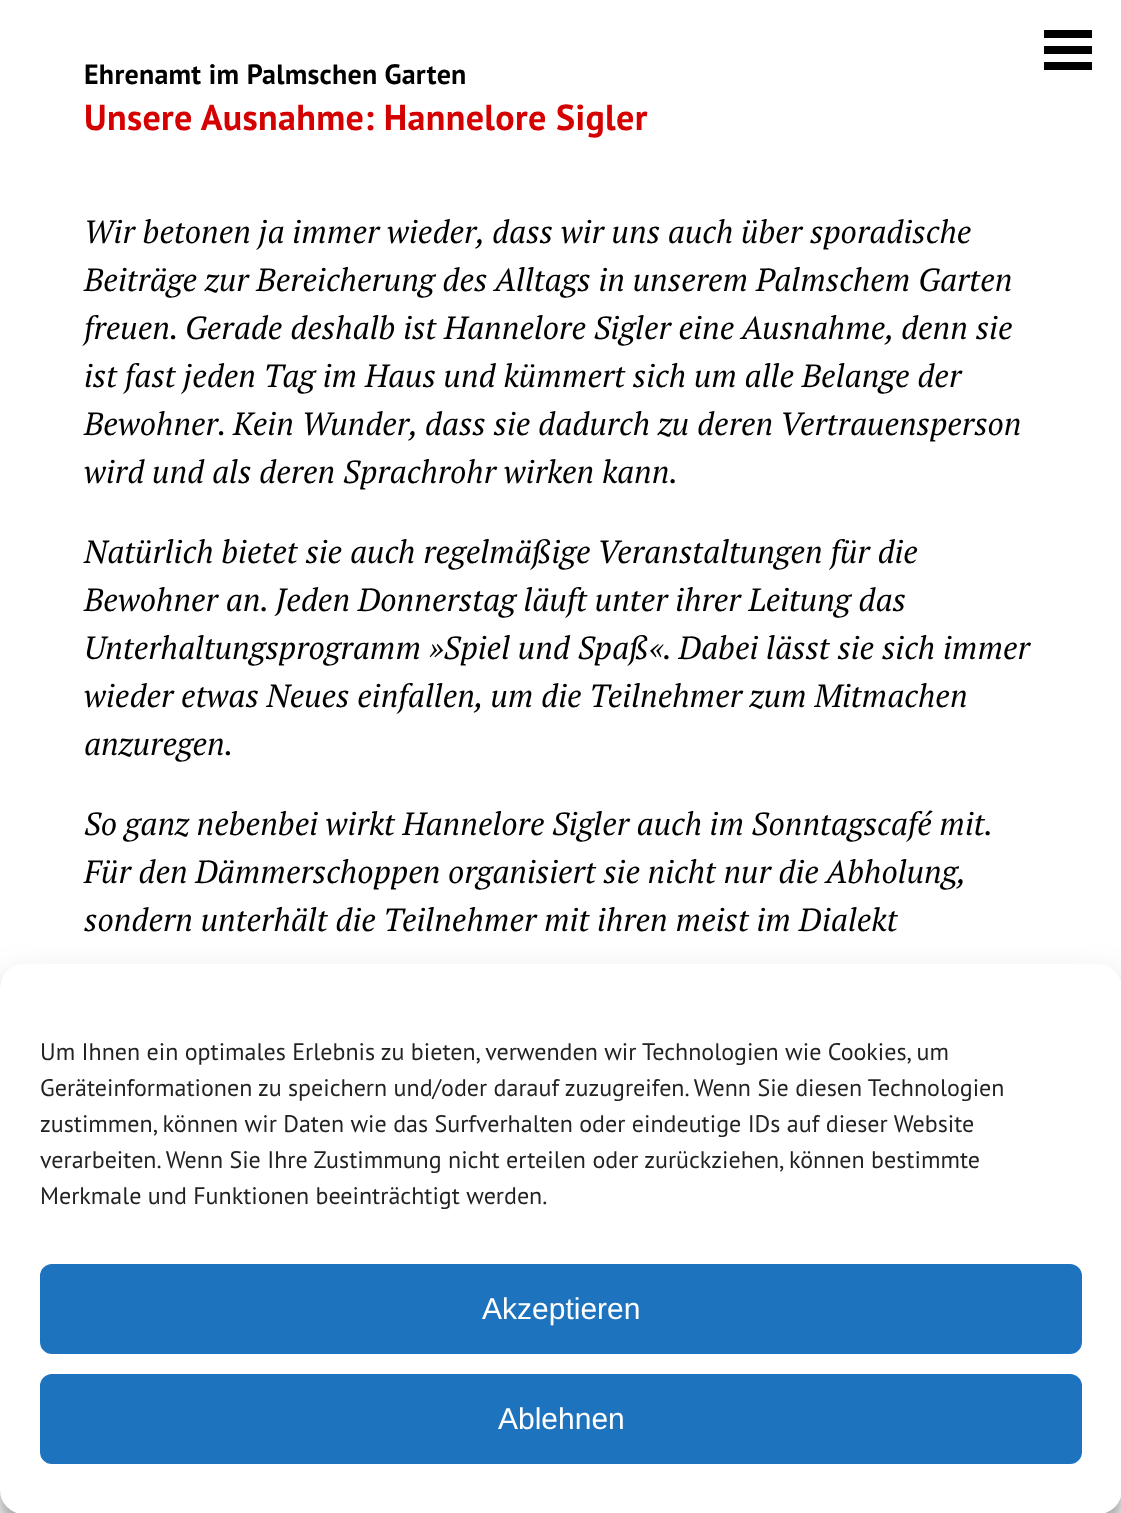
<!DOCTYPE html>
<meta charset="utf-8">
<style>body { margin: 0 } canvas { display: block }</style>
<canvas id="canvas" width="1121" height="1513"></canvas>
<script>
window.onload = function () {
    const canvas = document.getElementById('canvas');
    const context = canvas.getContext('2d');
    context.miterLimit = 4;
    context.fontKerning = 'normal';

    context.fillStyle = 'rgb(255, 255, 255)';
    context.fillRect(0, 0, 1121, 1513);
    context.fillStyle = 'rgb(0, 0, 0)';
    context.fillRect(1044, 30, 48, 8);
    context.fillRect(1044, 46, 48, 8);
    context.fillRect(1044, 62, 48, 8);
    context.fillStyle = 'rgba(0, 0, 0, 0.23)';
    context.filter = 'blur(6px)';
    context.beginPath();
    context.roundRect(0, 976, 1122, 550, 24);
    context.fill();
    context.filter = 'none';
    context.fillStyle = 'rgba(0, 0, 0, 0.19)';
    context.filter = 'blur(20px)';
    context.beginPath();
    context.roundRect(0, 984, 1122, 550, 24);
    context.fill();
    context.filter = 'none';
    context.fillStyle = 'rgb(255, 255, 255)';
    context.beginPath();
    context.roundRect(0, 964, 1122, 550, 24);
    context.fill();
    context.fillStyle = 'rgb(30, 115, 190)';
    context.beginPath();
    context.roundRect(41, 1265, 1040, 88, 11);
    context.fill();
    context.strokeStyle = 'rgb(30, 115, 190)';
    context.lineWidth = 2;
    context.stroke();
    context.beginPath();
    context.roundRect(41, 1375, 1040, 88, 11);
    context.fill();
    context.stroke();
    context.letterSpacing = '0.25px';
    context.font = 'bold 28px PT Sans';
    context.fillStyle = 'rgb(0, 0, 0)';
    context.fillText('Ehrenamt im Palmschen Garten', 84, 84);
    context.letterSpacing = '0.35px';
    context.font = 'bold 36px PT Sans';
    context.fillStyle = 'rgb(213, 0, 0)';
    context.fillText('Unsere Ausnahme: Hannelore Sigler', 84, 130);
    context.letterSpacing = '0px';
    context.font = 'italic 32px PT Serif';
    context.fillStyle = 'rgb(0, 0, 0)';
    context.fillText('Wir betonen ja immer wieder, dass wir uns auch über sporadische', 84, 243);
    context.fillText('Beiträge zur Bereicherung des Alltags in unserem Palmschem Garten', 84, 291);
    context.fillText('freuen. Gerade deshalb ist Hannelore Sigler eine Ausnahme, denn sie', 84, 339);
    context.fillText('ist fast jeden Tag im Haus und kümmert sich um alle Belange der', 84, 387);
    context.fillText('Bewohner. Kein Wunder, dass sie dadurch zu deren Vertrauensperson', 84, 435);
    context.fillText('wird und als deren Sprachrohr wirken kann.', 84, 483);
    context.fillText('Natürlich bietet sie auch regelmäßige Veranstaltungen für die', 84, 563);
    context.fillText('Bewohner an. Jeden Donnerstag läuft unter ihrer Leitung das', 84, 611);
    context.fillText('Unterhaltungsprogramm »Spiel und Spaß«. Dabei lässt sie sich immer', 84, 659);
    context.fillText('wieder etwas Neues einfallen, um die Teilnehmer zum Mitmachen', 84, 707);
    context.fillText('anzuregen.', 84, 755);
    context.wordSpacing = '-0.25px';
    context.fillText('So ganz nebenbei wirkt Hannelore Sigler auch im Sonntagscafé mit.', 84, 835);
    context.fillText('Für den Dämmerschoppen organisiert sie nicht nur die Abholung,', 84, 883);
    context.wordSpacing = '0px';
    context.fillText('sondern unterhält die Teilnehmer mit ihren meist im Dialekt', 84, 931);
    context.font = '24px PT Sans';
    context.fillStyle = 'rgb(34, 34, 34)';
    context.fillText('Um Ihnen ein optimales Erlebnis zu bieten, verwenden wir Technologien wie Cookies, um', 40, 1060);
    context.fillText('Geräteinformationen zu speichern und/oder darauf zuzugreifen. Wenn Sie diesen Technologien', 40, 1096);
    context.fillText('zustimmen, können wir Daten wie das Surfverhalten oder eindeutige IDs auf dieser Website', 40, 1132);
    context.fillText('verarbeiten. Wenn Sie Ihre Zustimmung nicht erteilen oder zurückziehen, können bestimmte', 40, 1168);
    context.fillText('Merkmale und Funktionen beeinträchtigt werden.', 40, 1204);
    context.font = '30px Liberation Sans';
    context.fillStyle = 'rgb(255, 255, 255)';
    context.fillText('Akzeptieren', 482, 1319);
    context.fillText('Ablehnen', 498, 1429);
};
</script>
